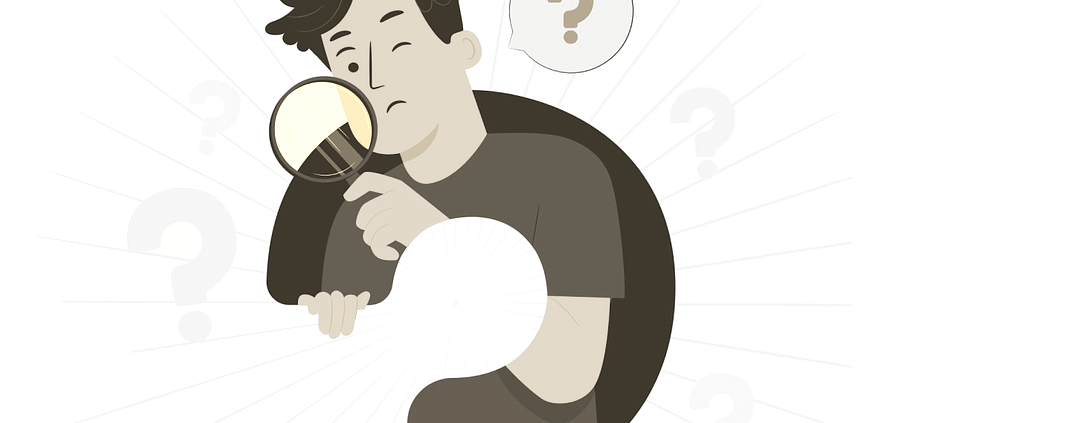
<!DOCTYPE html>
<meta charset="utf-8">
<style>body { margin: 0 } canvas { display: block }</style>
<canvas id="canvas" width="1077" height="423"></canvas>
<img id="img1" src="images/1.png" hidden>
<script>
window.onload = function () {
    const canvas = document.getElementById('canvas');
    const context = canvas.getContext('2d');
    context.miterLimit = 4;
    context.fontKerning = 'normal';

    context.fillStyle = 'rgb(255, 255, 255)';
    context.fillRect(0, 0, 1077, 423);
    context.drawImage(document.getElementById('img1'), 36, 0, 816, 423);
};
</script>
